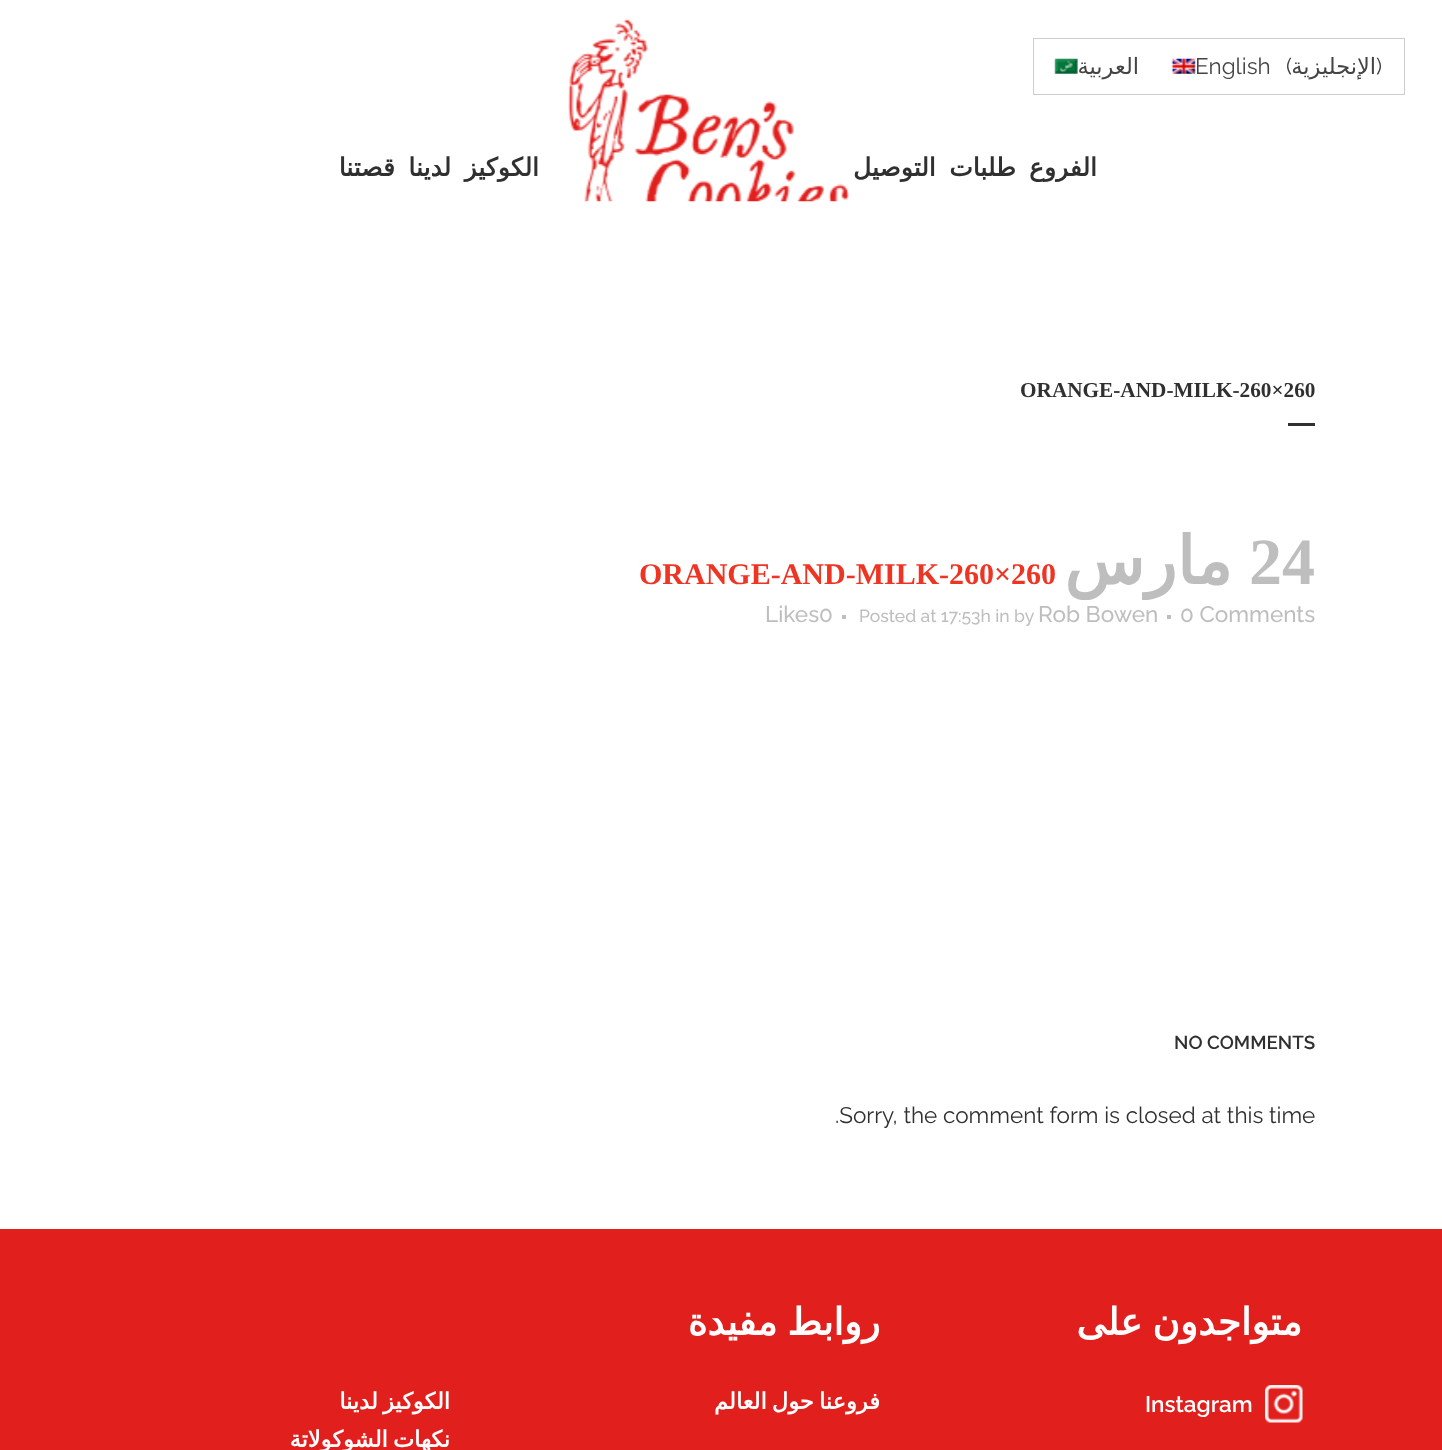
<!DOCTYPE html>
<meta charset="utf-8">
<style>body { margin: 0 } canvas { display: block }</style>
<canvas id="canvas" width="1442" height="1450"></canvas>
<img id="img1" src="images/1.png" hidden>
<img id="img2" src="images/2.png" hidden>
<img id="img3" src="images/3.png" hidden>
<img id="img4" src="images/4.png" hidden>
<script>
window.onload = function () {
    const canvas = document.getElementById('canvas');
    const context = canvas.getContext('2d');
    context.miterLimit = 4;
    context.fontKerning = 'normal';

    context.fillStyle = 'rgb(255, 255, 255)';
    context.fillRect(0, 0, 1442, 1450);
    context.strokeStyle = 'rgb(205, 205, 205)';
    context.strokeRect(1033.5, 38.5, 371, 56);
    context.drawImage(document.getElementById('img1'), 1054, 58, 24, 16);
    context.drawImage(document.getElementById('img2'), 1171, 58, 25, 16);
    context.drawImage(document.getElementById('img3'), 568, 18, 281, 184);
    context.fillStyle = 'rgb(48, 48, 48)';
    context.fillRect(1288, 423, 27, 3);
    context.fillStyle = 'rgb(190, 190, 190)';
    context.fillRect(842, 615, 4, 4);
    context.fillRect(1167, 615, 4, 4);
    context.fillStyle = 'rgb(225, 31, 29)';
    context.fillRect(0, 1229, 1442, 221);
    context.drawImage(document.getElementById('img4'), 1265, 1385, 38, 38);
    context.direction = 'rtl';
    context.font = '22.5px DejaVu Sans';
    context.fillStyle = 'rgb(68, 68, 68)';
    context.fillText('العربية', 1139, 74);
    context.direction = 'ltr';
    context.font = '22.5px Raleway';
    context.fillText('English', 1195, 74);
    context.fillText('(', 1286, 74);
    context.direction = 'rtl';
    context.font = '22.5px DejaVu Sans';
    context.fillText('الإنجليزية', 1376, 74);
    context.direction = 'ltr';
    context.font = '22.5px Raleway';
    context.fillText(')', 1376, 74);
    context.letterSpacing = '-0.6px';
    context.direction = 'rtl';
    context.font = 'bold 25px DejaVu Sans';
    context.fillStyle = 'rgb(48, 48, 48)';
    context.fillText('قصتنا', 395, 176);
    context.wordSpacing = '6px';
    context.fillText('الكوكيز لدينا', 539, 176);
    context.fillText('طلبات التوصيل', 1016, 176);
    context.wordSpacing = '0px';
    context.fillText('الفروع', 1097, 176);
    context.letterSpacing = '0px';
    context.direction = 'ltr';
    context.font = 'bold 21.25px Liberation Serif';
    context.fillText('ORANGE-AND-MILK-260×260', 1020, 397);
    context.font = 'bold 30px Liberation Serif';
    context.fillStyle = 'rgb(238, 53, 36)';
    context.fillText('ORANGE-AND-MILK-260×260', 639, 584);
    context.direction = 'rtl';
    context.font = 'bold 66px DejaVu Sans';
    context.fillStyle = 'rgb(190, 190, 190)';
    context.fillText('مارس', 1232, 584);
    context.direction = 'ltr';
    context.font = 'bold 66px Liberation Serif';
    context.fillText('24', 1249, 584);
    context.font = '500 22.5px Raleway';
    context.fillText('Likes', 765, 622);
    context.fillText('0', 819, 622);
    context.font = '500 17.5px Raleway';
    context.fillText('Posted at 17:53h in by', 859, 622);
    context.font = '500 22.5px Raleway';
    context.fillText('Rob Bowen', 1038, 622);
    context.fillText('0 Comments', 1180, 622);
    context.font = '600 18.75px Raleway';
    context.fillStyle = 'rgb(48, 48, 48)';
    context.fillText('NO COMMENTS', 1174, 1049);
    context.font = '22.5px Raleway';
    context.fillText('.Sorry, the comment form is closed at this time', 835, 1123);
    context.wordSpacing = '-2px';
    context.direction = 'rtl';
    context.font = 'bold 37.5px DejaVu Sans';
    context.fillStyle = 'rgb(255, 255, 255)';
    context.fillText('روابط مفيدة', 880, 1335);
    context.font = 'bold 22.5px DejaVu Sans';
    context.fillText('الكوكيز لدينا', 450, 1409);
    context.fillText('نكهات الشوكولاتة', 450, 1447);
    context.fillText('فروعنا حول العالم', 880, 1409);
    context.font = 'bold 37.5px DejaVu Sans';
    context.fillText('متواجدون على', 1302, 1335);
    context.wordSpacing = '0px';
    context.direction = 'ltr';
    context.font = '600 22.5px Raleway';
    context.fillText('Instagram', 1145, 1412);
};
</script>
